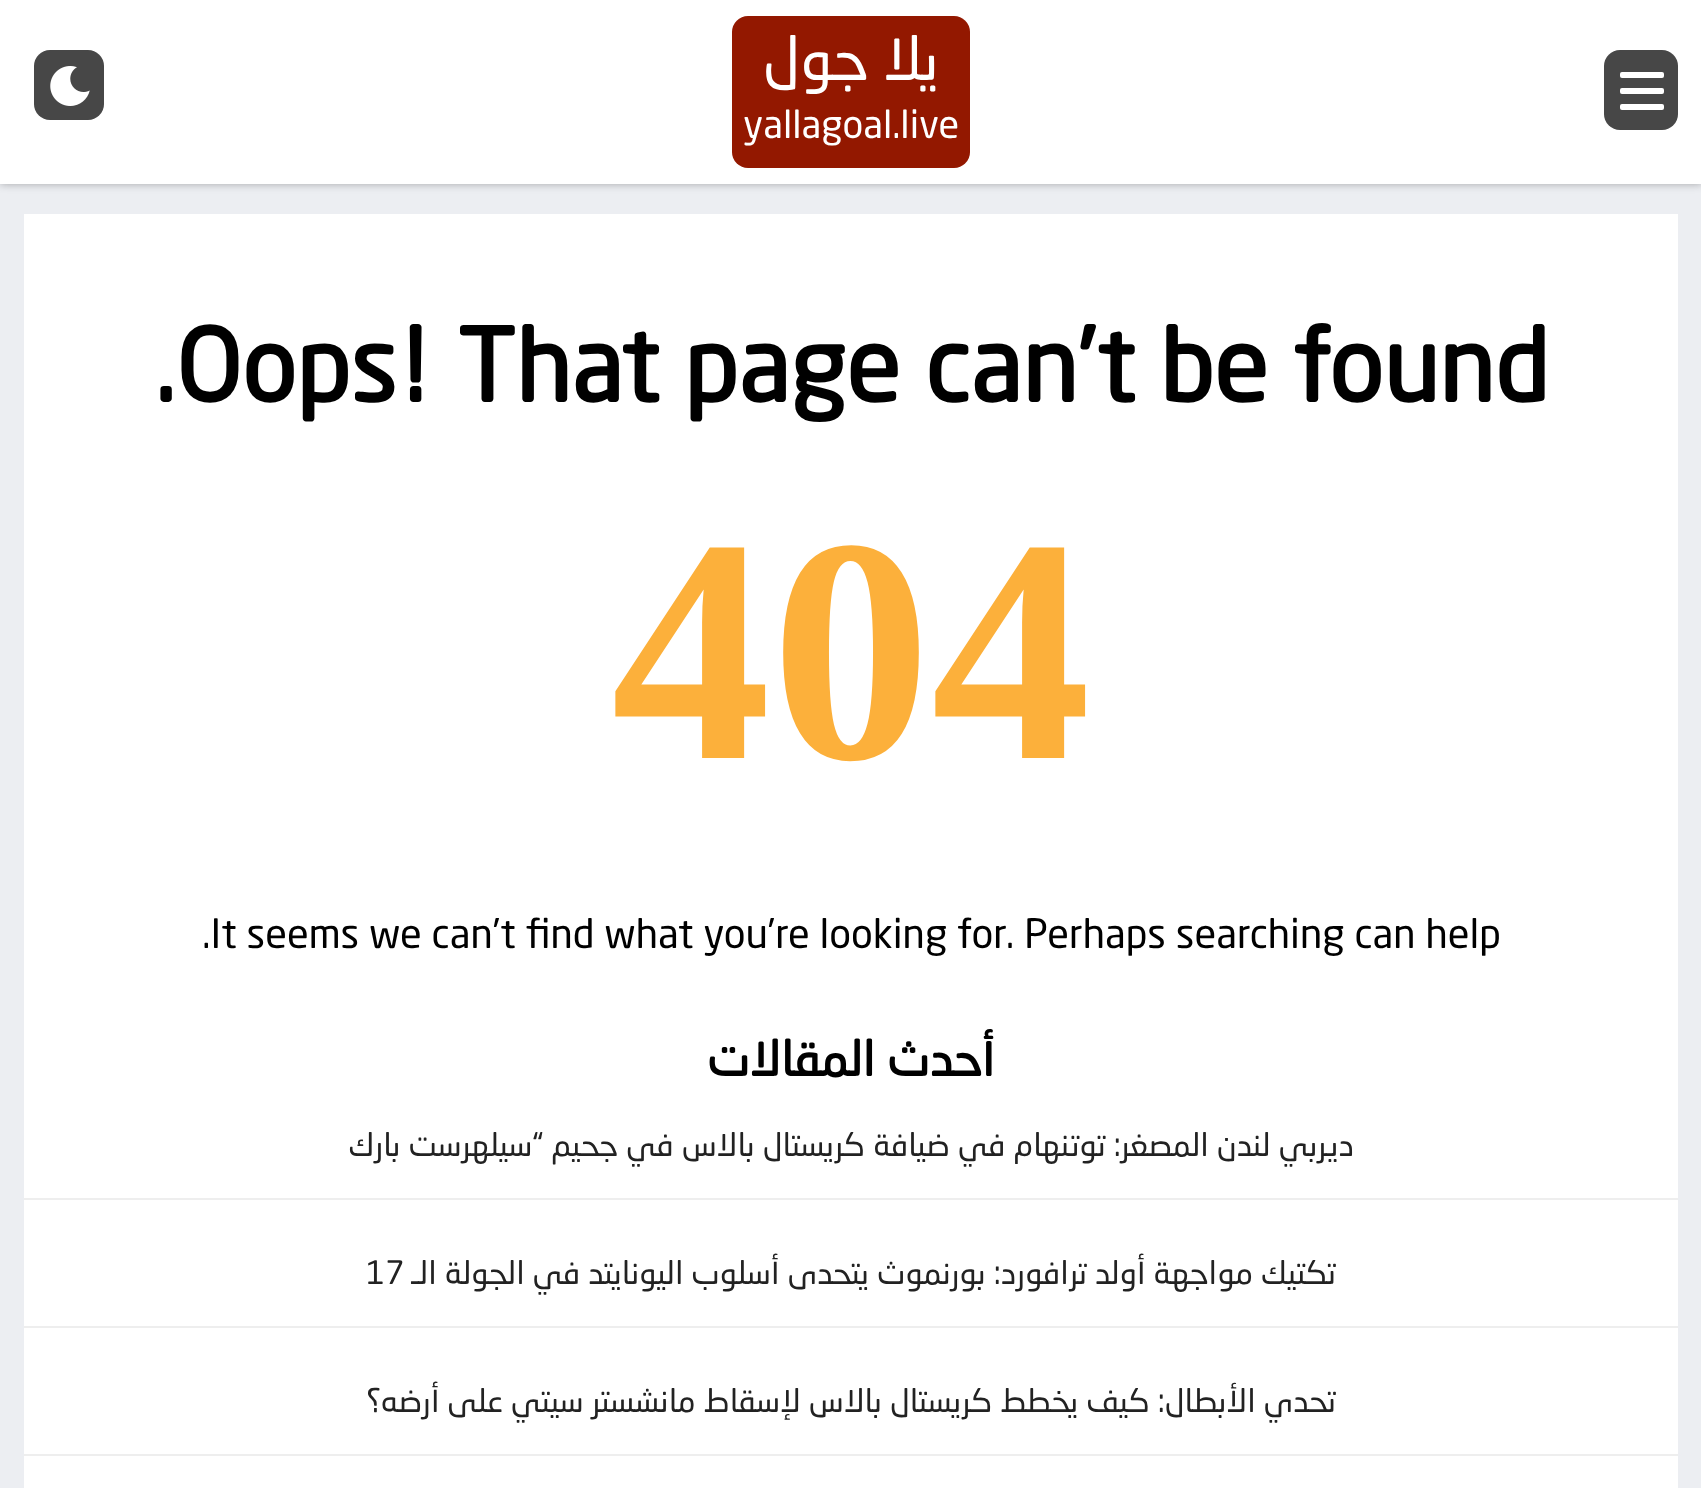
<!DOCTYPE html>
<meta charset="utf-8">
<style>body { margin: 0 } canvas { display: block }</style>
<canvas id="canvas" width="1701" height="1488"></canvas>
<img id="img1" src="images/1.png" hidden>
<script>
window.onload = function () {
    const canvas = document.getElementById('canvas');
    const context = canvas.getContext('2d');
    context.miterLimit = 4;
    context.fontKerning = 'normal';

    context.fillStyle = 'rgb(236, 238, 242)';
    context.fillRect(0, 0, 1701, 1488);
    context.fillStyle = 'rgba(0, 0, 0, 0.3)';
    context.filter = 'blur(4px)';
    context.beginPath();
    context.rect(0, 0, 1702, 184);
    context.fill();
    context.filter = 'none';
    context.fillStyle = 'rgb(255, 255, 255)';
    context.fillRect(0, 0, 1701, 184);
    context.fillStyle = 'rgb(147, 24, 0)';
    context.beginPath();
    context.roundRect(732, 16, 238, 152, 16);
    context.fill();
    context.fillStyle = 'rgb(71, 71, 71)';
    context.beginPath();
    context.roundRect(1604, 50, 74, 80, 16);
    context.fill();
    context.fillStyle = 'rgb(255, 255, 255)';
    context.beginPath();
    context.roundRect(1620, 72, 44, 6, 2);
    context.fill();
    context.beginPath();
    context.roundRect(1620, 88, 44, 6, 2);
    context.fill();
    context.beginPath();
    context.roundRect(1620, 104, 44, 6, 2);
    context.fill();
    context.fillStyle = 'rgb(71, 71, 71)';
    context.beginPath();
    context.roundRect(34, 50, 70, 70, 16);
    context.fill();
    context.drawImage(document.getElementById('img1'), 50, 66, 40, 40);
    context.fillStyle = 'rgb(255, 255, 255)';
    context.fillRect(24, 214, 1654, 1274);
    context.fillStyle = 'rgb(238, 238, 238)';
    context.fillRect(24, 1198, 1654, 2);
    context.fillRect(24, 1326, 1654, 2);
    context.fillRect(24, 1454, 1654, 2);
    context.direction = 'rtl';
    context.font = '60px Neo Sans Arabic';
    context.fillStyle = 'rgb(255, 255, 255)';
    context.fillText('يلا جول', 939, 80);
    context.direction = 'ltr';
    context.font = '38px Neo Sans Arabic';
    context.fillText('yallagoal.live', 743, 138);
    context.font = 'bold 100px Neo Sans Arabic';
    context.fillStyle = 'rgb(0, 0, 0)';
    context.fillText('.Oops! That page can’t be found', 154, 402);
    context.font = 'bold 320px Liberation Serif';
    context.fillStyle = 'rgb(252, 176, 59)';
    context.fillText('404', 611, 758);
    context.font = '40px Neo Sans Arabic';
    context.fillStyle = 'rgb(0, 0, 0)';
    context.fillText('.It seems we can’t find what you’re looking for. Perhaps searching can help', 202, 948);
    context.direction = 'rtl';
    context.font = 'bold 48px Neo Sans Arabic';
    context.fillText('أحدث المقالات', 995, 1076);
    context.font = '32px Neo Sans Arabic';
    context.fillStyle = 'rgb(34, 34, 34)';
    context.fillText('ديربي لندن المصغر: توتنهام في ضيافة كريستال بالاس في جحيم “سيلهرست بارك', 1354, 1156);
    context.fillText('تكتيك مواجهة أولد ترافورد: بورنموث يتحدى أسلوب اليونايتد في الجولة الـ', 1336, 1284);
    context.direction = 'ltr';
    context.fillText('17', 366, 1284);
    context.direction = 'rtl';
    context.fillText('تحدي الأبطال: كيف يخطط كريستال بالاس لإسقاط مانشستر سيتي على أرضه؟', 1336, 1412);
};
</script>
